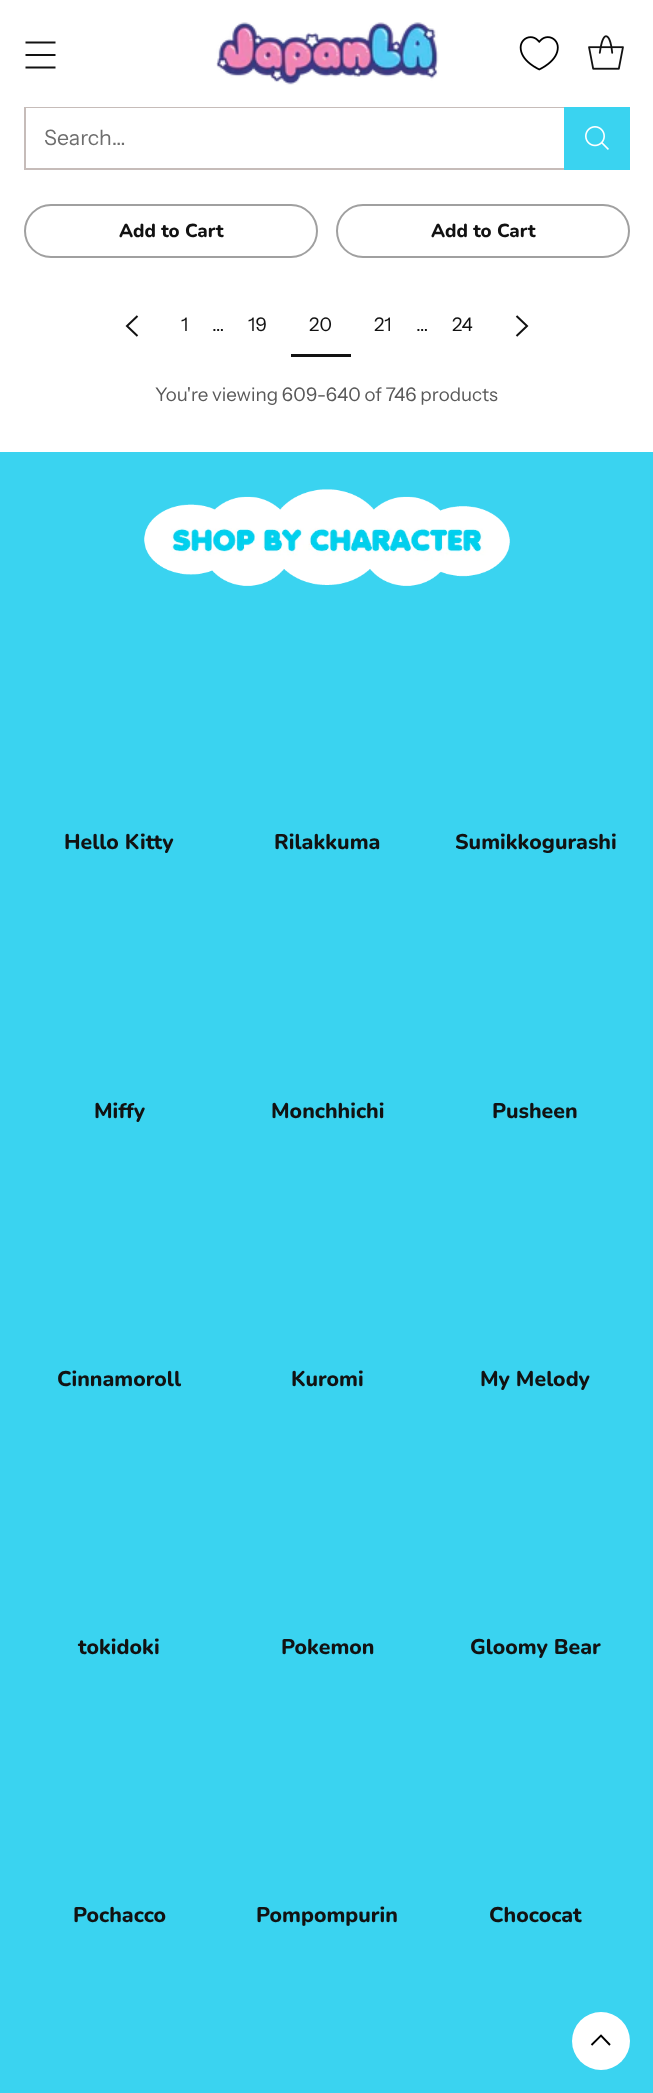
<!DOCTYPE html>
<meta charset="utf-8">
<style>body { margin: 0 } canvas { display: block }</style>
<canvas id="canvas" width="653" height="2093"></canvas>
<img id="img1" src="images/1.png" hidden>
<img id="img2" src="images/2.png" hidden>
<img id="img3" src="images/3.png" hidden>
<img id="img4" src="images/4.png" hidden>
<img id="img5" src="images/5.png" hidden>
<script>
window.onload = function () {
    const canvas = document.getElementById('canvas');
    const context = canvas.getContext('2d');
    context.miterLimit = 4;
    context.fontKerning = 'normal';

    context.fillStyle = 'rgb(255, 255, 255)';
    context.fillRect(0, 0, 653, 2093);
    context.beginPath();
    context.moveTo(25.5, 55);
    context.lineTo(55.5, 55);
    context.moveTo(25.5, 42.5);
    context.lineTo(55.5, 42.5);
    context.moveTo(25.5, 67.5);
    context.lineTo(55.5, 67.5);
    context.strokeStyle = 'rgb(18, 18, 18)';
    context.lineWidth = 2.2;
    context.stroke();
    context.drawImage(document.getElementById('img1'), 216, 22, 223, 63);
    context.drawImage(document.getElementById('img2'), 519, 36, 40, 35);
    context.drawImage(document.getElementById('img3'), 588, 35, 36, 35);
    context.strokeStyle = 'rgb(198, 188, 185)';
    context.lineWidth = 2;
    context.strokeRect(25, 108, 604, 61);
    context.fillRect(26, 108, 538, 1);
    context.fillStyle = 'rgb(58, 211, 240)';
    context.fillRect(564, 107, 66, 63);
    context.drawImage(document.getElementById('img4'), 585, 126, 24, 24);
    context.beginPath();
    context.roundRect(25, 205, 292, 52, 26);
    context.strokeStyle = 'rgb(160, 160, 160)';
    context.stroke();
    context.beginPath();
    context.roundRect(337, 205, 292, 52, 26);
    context.stroke();
    context.beginPath();
    context.moveTo(137.5, 316);
    context.lineTo(127, 326);
    context.lineTo(137.5, 336);
    context.strokeStyle = 'rgb(18, 18, 18)';
    context.stroke();
    context.fillStyle = 'rgb(18, 18, 18)';
    context.fillRect(291, 354, 60, 3);
    context.beginPath();
    context.moveTo(516.5, 336);
    context.lineTo(527, 326);
    context.lineTo(516.5, 316);
    context.stroke();
    context.fillStyle = 'rgb(58, 211, 240)';
    context.fillRect(0, 452, 653, 1641);
    context.drawImage(document.getElementById('img5'), 144, 489, 366, 97);
    context.fillStyle = 'rgb(255, 255, 255)';
    context.beginPath();
    context.arc(601, 2041, 29, 0, 2 * Math.PI);
    context.fill();
    context.beginPath();
    context.moveTo(610, 2045);
    context.lineTo(601, 2035.5);
    context.lineTo(591.5, 2045);
    context.strokeStyle = 'rgb(0, 0, 0)';
    context.lineWidth = 1.9;
    context.stroke();
    context.font = '21.25px Instrument Sans';
    context.fillStyle = 'rgb(110, 110, 110)';
    context.fillText('Search…', 44, 145);
    context.font = '800 18.75px Nunito';
    context.fillStyle = 'rgb(18, 18, 18)';
    context.fillText('Add to Cart', 119, 237);
    context.fillText('Add to Cart', 431, 237);
    context.font = '18.75px Instrument Sans';
    context.fillText('1', 181, 331);
    context.fillText('…', 212, 331);
    context.fillText('19', 248, 331);
    context.fillText('20', 309, 331);
    context.fillText('21', 374, 331);
    context.fillText('…', 416, 331);
    context.fillText('24', 452, 331);
    context.fillStyle = 'rgb(89, 89, 89)';
    context.fillText('You\'re viewing 609-640 of 746 products', 155, 401);
    context.font = '800 21.25px Nunito';
    context.fillStyle = 'rgb(18, 18, 18)';
    context.fillText('Hello Kitty', 64, 849);
    context.fillText('Rilakkuma', 274, 849);
    context.fillText('Sumikkogurashi', 455, 849);
    context.fillText('Miffy', 94, 1118);
    context.fillText('Monchhichi', 271, 1118);
    context.fillText('Pusheen', 492, 1118);
    context.fillText('Cinnamoroll', 57, 1386);
    context.fillText('Kuromi', 291, 1386);
    context.fillText('My Melody', 480, 1386);
    context.fillText('tokidoki', 78, 1654);
    context.fillText('Pokemon', 281, 1654);
    context.fillText('Gloomy Bear', 470, 1654);
    context.fillText('Pochacco', 73, 1922);
    context.fillText('Pompompurin', 256, 1922);
    context.fillText('Chococat', 489, 1922);
};
</script>
